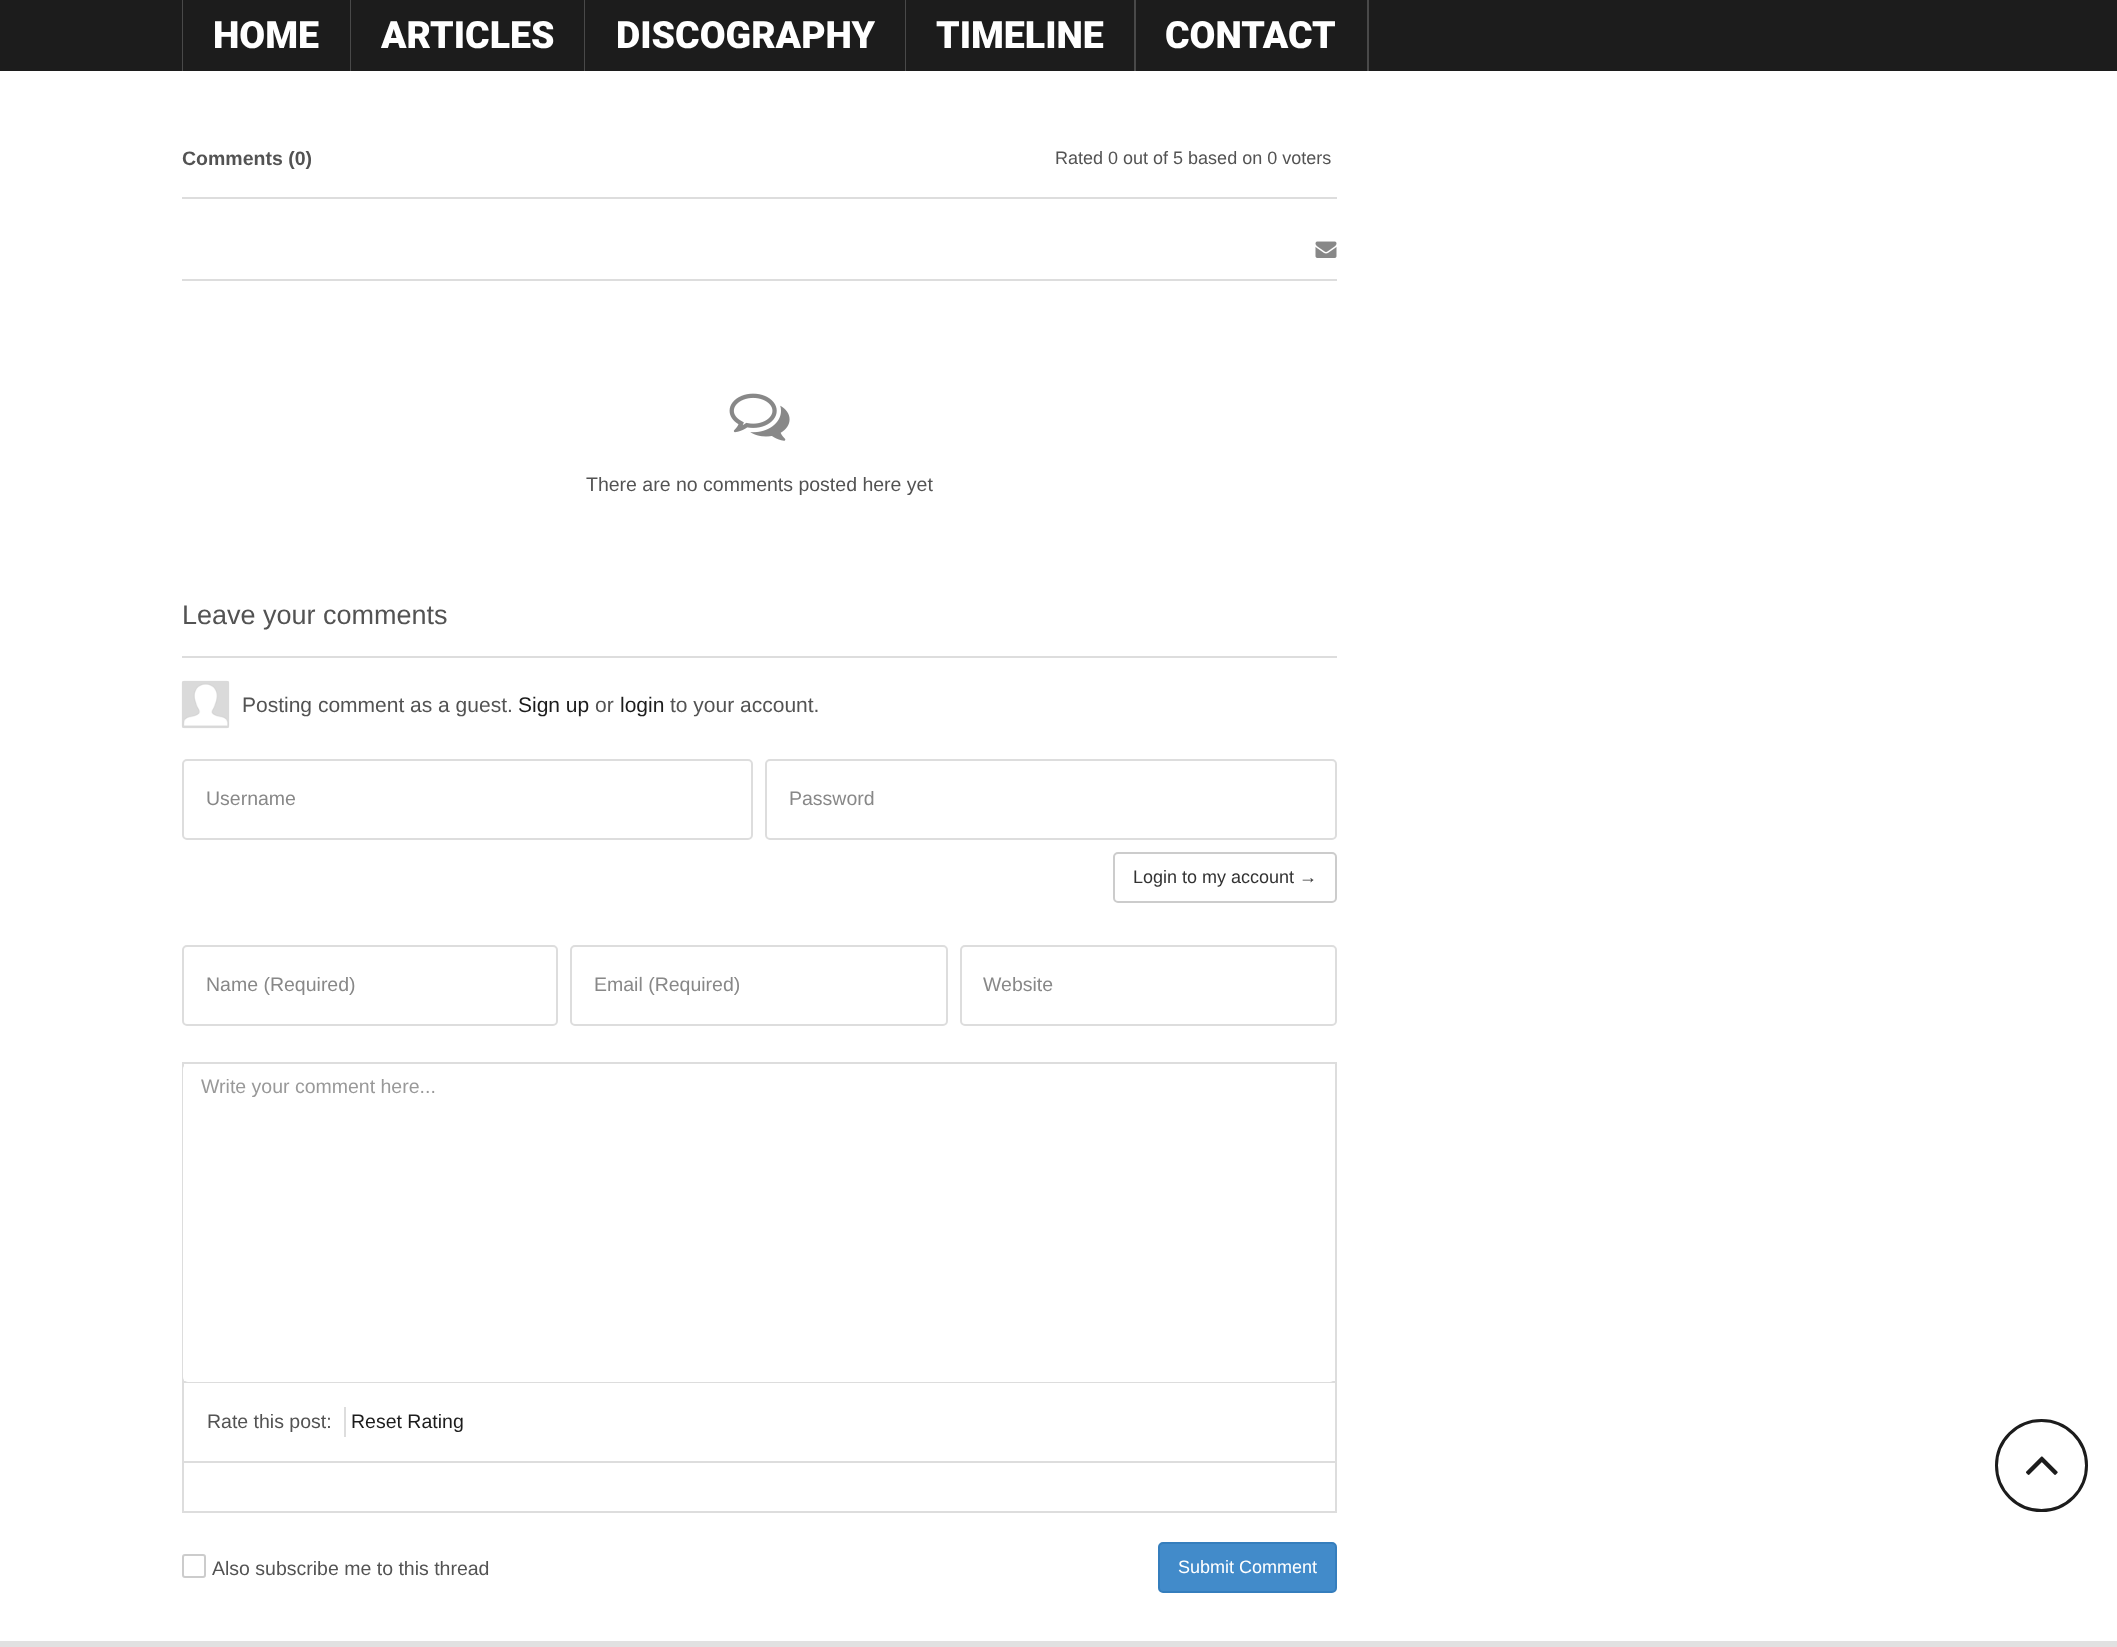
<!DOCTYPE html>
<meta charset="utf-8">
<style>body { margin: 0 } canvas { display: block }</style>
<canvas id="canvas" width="2117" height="1647"></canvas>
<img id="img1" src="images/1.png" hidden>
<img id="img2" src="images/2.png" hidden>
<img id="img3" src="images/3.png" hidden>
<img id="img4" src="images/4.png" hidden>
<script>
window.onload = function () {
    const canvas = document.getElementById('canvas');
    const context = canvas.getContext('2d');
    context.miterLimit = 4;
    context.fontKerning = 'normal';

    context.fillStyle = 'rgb(255, 255, 255)';
    context.fillRect(0, 0, 2117, 1647);
    context.fillStyle = 'rgb(28, 28, 28)';
    context.fillRect(0, 0, 2117, 71);
    context.fillStyle = 'rgb(73, 73, 73)';
    context.fillRect(182, 0, 1, 71);
    context.fillRect(350, 0, 1, 71);
    context.fillRect(584, 0, 1, 71);
    context.fillRect(905, 0, 1, 71);
    context.fillRect(1134, 0, 2, 71);
    context.fillRect(1367, 0, 2, 71);
    context.fillStyle = 'rgb(221, 221, 221)';
    context.fillRect(182, 197, 1155, 2);
    context.fillStyle = 'rgb(225, 225, 225)';
    context.fillRect(0, 1641, 2117, 6);
    context.fillStyle = 'rgb(221, 221, 221)';
    context.fillRect(182, 279, 1155, 2);
    context.drawImage(document.getElementById('img1'), 1315, 241, 22, 17);
    context.drawImage(document.getElementById('img2'), 729, 393, 61, 48);
    context.fillRect(182, 656, 1155, 2);
    context.drawImage(document.getElementById('img3'), 181, 680, 49, 49);
    context.beginPath();
    context.roundRect(183, 760, 569, 79, 4);
    context.strokeStyle = 'rgb(221, 221, 221)';
    context.lineWidth = 2;
    context.stroke();
    context.beginPath();
    context.roundRect(766, 760, 570, 79, 4);
    context.stroke();
    context.beginPath();
    context.roundRect(1114, 853, 222, 49, 4);
    context.strokeStyle = 'rgb(204, 204, 204)';
    context.stroke();
    context.beginPath();
    context.roundRect(183, 946, 374, 79, 4);
    context.strokeStyle = 'rgb(221, 221, 221)';
    context.stroke();
    context.beginPath();
    context.roundRect(571, 946, 376, 79, 4);
    context.stroke();
    context.beginPath();
    context.roundRect(961, 946, 375, 79, 4);
    context.stroke();
    context.strokeRect(183, 1063, 1153, 319);
    context.fillStyle = 'rgb(255, 255, 255)';
    context.beginPath();
    context.roundRect(183, 1064, 1152, 318, 5);
    context.fill();
    context.fillStyle = 'rgb(221, 221, 221)';
    context.fillRect(1335, 1383, 2, 129);
    context.fillRect(182, 1461, 1155, 2);
    context.fillRect(182, 1383, 2, 80);
    context.fillRect(344, 1407, 2, 30);
    context.fillRect(182, 1511, 1155, 2);
    context.fillRect(182, 1463, 2, 49);
    context.beginPath();
    context.roundRect(183, 1555, 22, 22, 2);
    context.strokeStyle = 'rgb(204, 204, 204)';
    context.stroke();
    context.fillStyle = 'rgb(66, 139, 202)';
    context.beginPath();
    context.roundRect(1159, 1543, 177, 49, 4);
    context.fill();
    context.strokeStyle = 'rgb(53, 126, 189)';
    context.stroke();
    context.beginPath();
    context.arc(2041.5, 1465.5, 45, 0, 2 * Math.PI);
    context.strokeStyle = 'rgb(28, 28, 28)';
    context.lineWidth = 3;
    context.stroke();
    context.drawImage(document.getElementById('img4'), 2026, 1456, 32, 19);
    context.font = '900 37.5px Roboto';
    context.fillStyle = 'rgb(255, 255, 255)';
    context.fillText('HOME', 213, 48);
    context.fillText('ARTICLES', 381, 48);
    context.fillText('DISCOGRAPHY', 616, 48);
    context.fillText('TIMELINE', 936, 48);
    context.fillText('CONTACT', 1165, 48);
    context.font = 'bold 19.5px Liberation Sans';
    context.fillStyle = 'rgb(83, 83, 83)';
    context.fillText('Comments (0)', 182, 165);
    context.font = '18px Liberation Sans';
    context.fillText('Rated 0 out of 5 based on 0 voters', 1055, 164);
    context.font = '19.5px Liberation Sans';
    context.fillText('There are no comments posted here yet', 586, 491);
    context.font = '27px Liberation Sans';
    context.fillText('Leave your comments', 182, 624);
    context.font = '21px Liberation Sans';
    context.fillText('Posting comment as a guest.', 242, 712);
    context.fillStyle = 'rgb(28, 28, 28)';
    context.fillText('Sign up', 518, 712);
    context.fillStyle = 'rgb(83, 83, 83)';
    context.fillText('or', 595, 712);
    context.fillStyle = 'rgb(28, 28, 28)';
    context.fillText('login', 620, 712);
    context.fillStyle = 'rgb(83, 83, 83)';
    context.fillText('to your account.', 670, 712);
    context.font = '19.5px Liberation Sans';
    context.fillStyle = 'rgb(136, 136, 136)';
    context.fillText('Username', 206, 805);
    context.fillText('Password', 789, 805);
    context.font = '18px Liberation Sans';
    context.fillStyle = 'rgb(51, 51, 51)';
    context.fillText('Login to my account →', 1133, 883);
    context.font = '19.5px Liberation Sans';
    context.fillStyle = 'rgb(136, 136, 136)';
    context.fillText('Name (Required)', 206, 991);
    context.fillText('Email (Required)', 594, 991);
    context.fillText('Website', 983, 991);
    context.fillStyle = 'rgb(153, 153, 153)';
    context.fillText('Write your comment here...', 201, 1093);
    context.fillStyle = 'rgb(83, 83, 83)';
    context.fillText('Rate this post:', 207, 1428);
    context.fillStyle = 'rgb(28, 28, 28)';
    context.fillText('Reset Rating', 351, 1428);
    context.fillStyle = 'rgb(83, 83, 83)';
    context.fillText('Also subscribe me to this thread', 212, 1575);
    context.font = '18px Liberation Sans';
    context.fillStyle = 'rgb(255, 255, 255)';
    context.fillText('Submit Comment', 1178, 1573);
};
</script>
